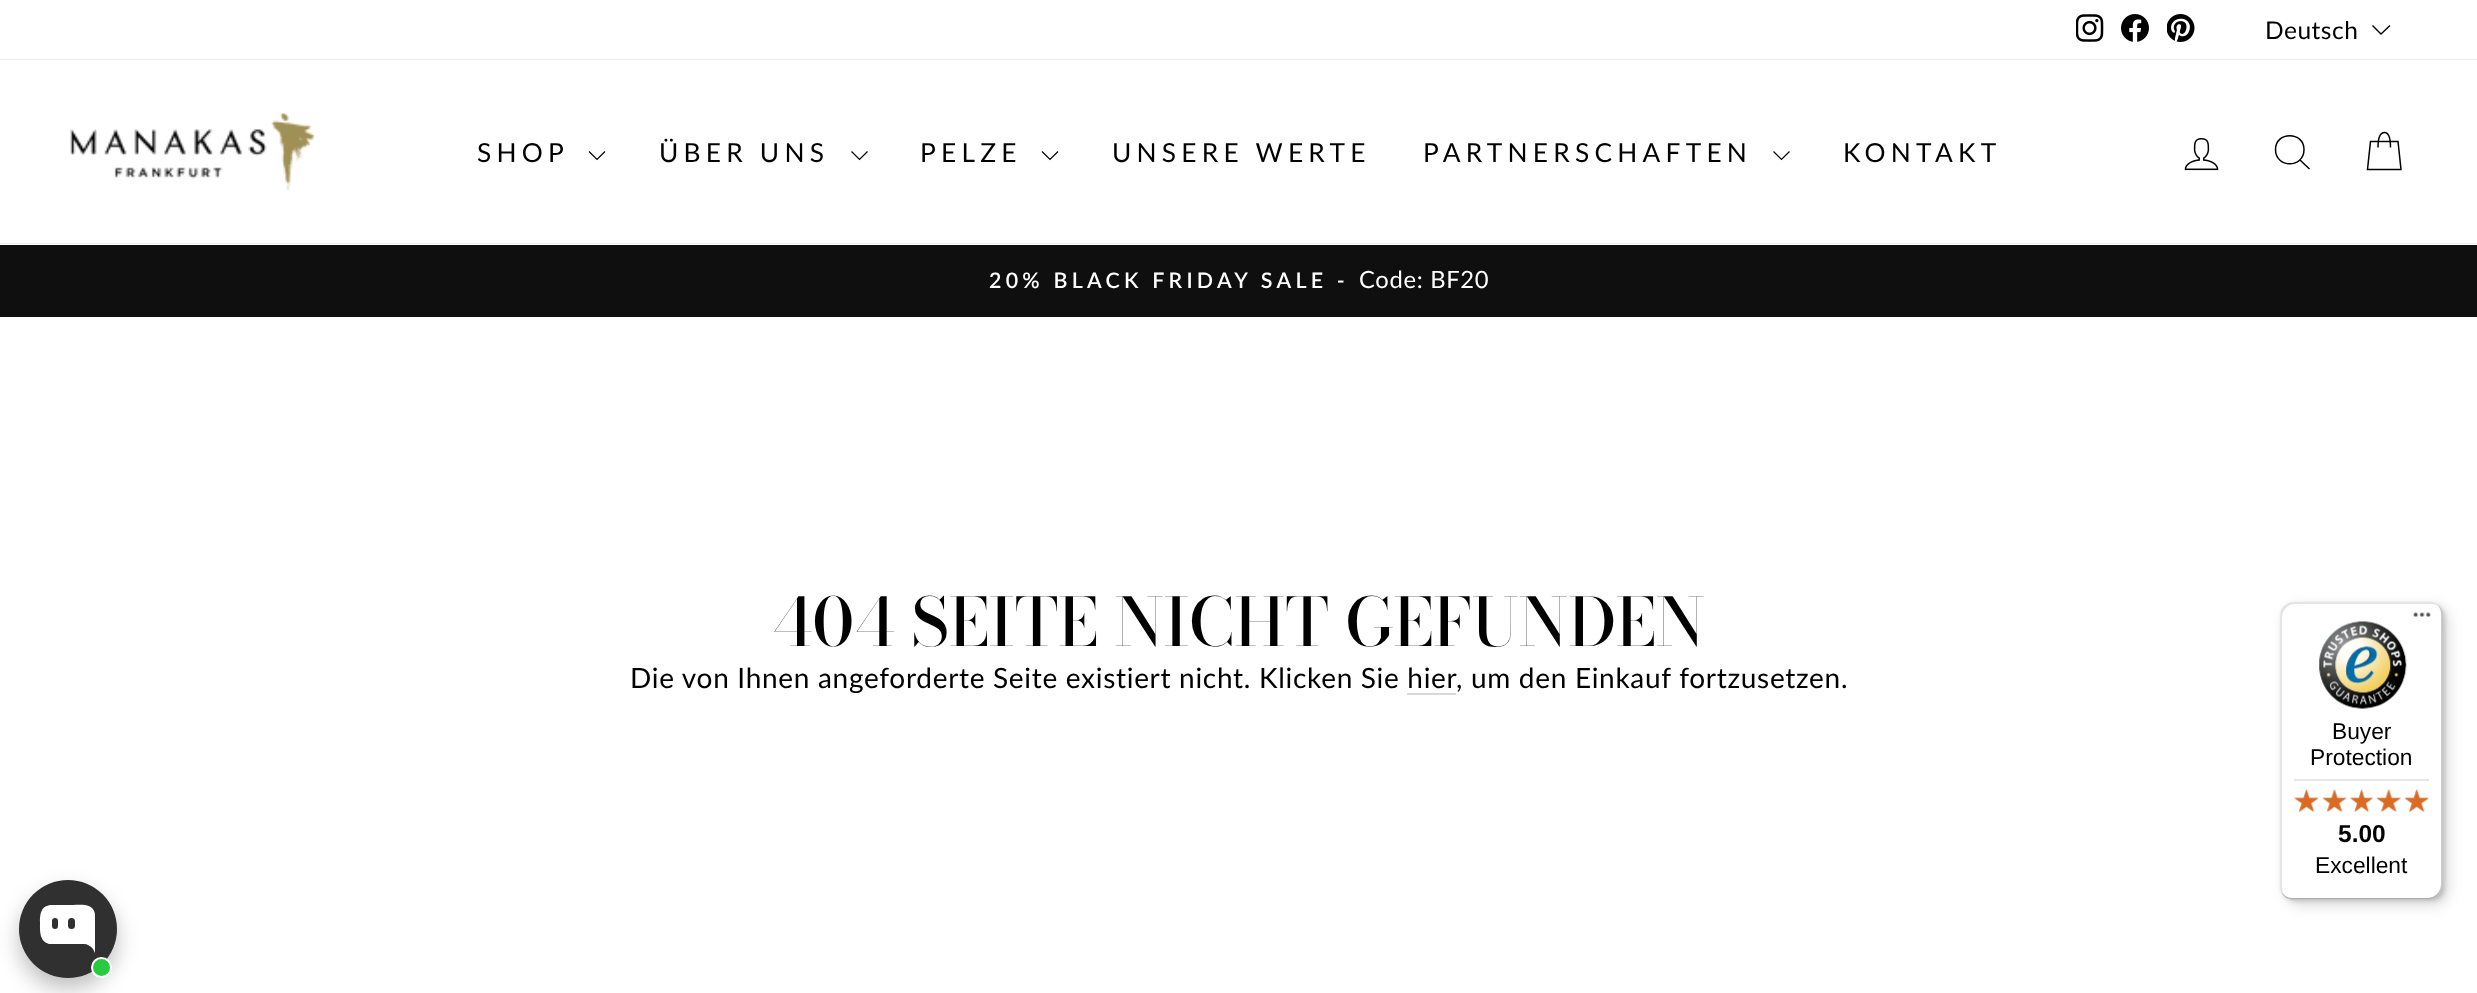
<!DOCTYPE html>
<meta charset="utf-8">
<style>body { margin: 0 } canvas { display: block }</style>
<canvas id="canvas" width="2477" height="993"></canvas>
<img id="img1" src="images/1.png" hidden>
<img id="img2" src="images/2.png" hidden>
<img id="img3" src="images/3.png" hidden>
<img id="img4" src="images/4.png" hidden>
<img id="img5" src="images/5.png" hidden>
<img id="img6" src="images/6.png" hidden>
<img id="img7" src="images/7.png" hidden>
<img id="img8" src="images/8.png" hidden>
<img id="img9" src="images/9.png" hidden>
<img id="img10" src="images/10.png" hidden>
<img id="img11" src="images/11.png" hidden>
<img id="img12" src="images/12.png" hidden>
<img id="img13" src="images/13.png" hidden>
<img id="img14" src="images/14.png" hidden>
<img id="img15" src="images/15.png" hidden>
<img id="img16" src="images/16.png" hidden>
<img id="img17" src="images/17.png" hidden>
<script>
window.onload = function () {
    const canvas = document.getElementById('canvas');
    const context = canvas.getContext('2d');
    context.miterLimit = 4;
    context.fontKerning = 'normal';

    context.fillStyle = 'rgb(255, 255, 255)';
    context.fillRect(0, 0, 2477, 993);
    context.drawImage(document.getElementById('img1'), 2076, 14, 28, 28);
    context.drawImage(document.getElementById('img2'), 2121, 14, 28, 28);
    context.drawImage(document.getElementById('img3'), 2167, 14, 28, 28);
    context.beginPath();
    context.moveTo(2372.5, 25.5);
    context.lineTo(2381, 34);
    context.lineTo(2390, 25.5);
    context.strokeStyle = 'rgb(0, 0, 0)';
    context.lineWidth = 1.4;
    context.stroke();
    context.fillStyle = 'rgb(15, 15, 15)';
    context.fillRect(0, 245, 2477, 72);
    context.save();
    context.beginPath();
    context.moveTo(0, 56);
    context.lineTo(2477, 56);
    context.lineTo(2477, 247);
    context.lineTo(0, 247);
    context.closePath();
    context.moveTo(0, 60);
    context.lineTo(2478, 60);
    context.lineTo(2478, 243);
    context.lineTo(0, 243);
    context.closePath();
    context.clip('evenodd');
    context.fillStyle = 'rgba(0, 0, 0, 0.2)';
    context.filter = 'blur(1px)';
    context.beginPath();
    context.rect(0, 60, 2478, 183);
    context.fill();
    context.filter = 'none';
    context.restore();
    context.drawImage(document.getElementById('img4'), 70, 112, 245, 79);
    context.beginPath();
    context.moveTo(589, 151.5);
    context.lineTo(597, 159.5);
    context.lineTo(605, 151.5);
    context.lineWidth = 1.2;
    context.stroke();
    context.beginPath();
    context.moveTo(851.5, 151.5);
    context.lineTo(859.5, 159.5);
    context.lineTo(867.5, 151.5);
    context.stroke();
    context.beginPath();
    context.moveTo(1042, 151.5);
    context.lineTo(1050, 159.5);
    context.lineTo(1058, 151.5);
    context.stroke();
    context.beginPath();
    context.moveTo(1773.5, 151.5);
    context.lineTo(1781.5, 159.5);
    context.lineTo(1789.5, 151.5);
    context.stroke();
    context.drawImage(document.getElementById('img5'), 2184, 138, 35, 33);
    context.beginPath();
    context.moveTo(2304, 149.5);
    context.bezierCurveTo(2304, 168.5, 2275.5, 168.5, 2275.5, 149.5);
    context.bezierCurveTo(2275.5, 131, 2304, 131, 2304, 149.5);
    context.closePath();
    context.moveTo(2309.5, 169);
    context.lineTo(2300, 160);
    context.lineWidth = 1.5;
    context.stroke();
    context.beginPath();
    context.moveTo(2378, 147.5);
    context.bezierCurveTo(2378, 135.5, 2381, 132.5, 2384.5, 132.5);
    context.bezierCurveTo(2387.5, 132.5, 2390.5, 135.5, 2390.5, 147.5);
    context.moveTo(2370.5, 141.5);
    context.lineTo(2398, 141.5);
    context.lineTo(2401, 169.5);
    context.lineTo(2367.5, 169.5);
    context.closePath();
    context.stroke();
    context.fillStyle = 'rgba(0, 0, 0, 0.15)';
    context.filter = 'blur(7px)';
    context.beginPath();
    context.roundRect(2286, 607, 162, 298, 14);
    context.fill();
    context.filter = 'none';
    context.filter = 'blur(2px)';
    context.beginPath();
    context.roundRect(2282, 604, 163, 297, 14);
    context.fill();
    context.filter = 'none';
    context.fillStyle = 'rgb(255, 255, 255)';
    context.beginPath();
    context.roundRect(2280, 602, 163, 298, 14);
    context.fill();
    context.fillStyle = 'rgba(0, 0, 0, 0.1)';
    context.beginPath();
    context.moveTo(2296, 604);
    context.lineTo(2431, 604);
    context.bezierCurveTo(2434, 604, 2438, 605, 2440, 608);
    context.bezierCurveTo(2438, 604, 2434, 602, 2429, 602);
    context.lineTo(2294, 602);
    context.bezierCurveTo(2286, 602, 2280, 608, 2280, 616);
    context.lineTo(2280, 886);
    context.bezierCurveTo(2280, 892, 2283, 896, 2288, 899);
    context.bezierCurveTo(2284, 896, 2282, 892, 2282, 887);
    context.lineTo(2282, 618);
    context.bezierCurveTo(2282, 610, 2288, 604, 2296, 604);
    context.closePath();
    context.fill();
    context.fillStyle = 'rgba(0, 0, 0, 0.2)';
    context.beginPath();
    context.moveTo(2282, 893);
    context.bezierCurveTo(2284, 897, 2289, 900, 2294, 900);
    context.lineTo(2429, 900);
    context.bezierCurveTo(2437, 900, 2443, 894, 2443, 886);
    context.lineTo(2443, 616);
    context.bezierCurveTo(2443, 611, 2441, 607, 2437, 605);
    context.bezierCurveTo(2440, 607, 2441, 611, 2441, 614);
    context.lineTo(2441, 884);
    context.bezierCurveTo(2441, 891, 2435, 898, 2427, 898);
    context.lineTo(2292, 898);
    context.bezierCurveTo(2288, 898, 2285, 896, 2282, 893);
    context.closePath();
    context.fill();
    context.fillStyle = 'rgba(50, 50, 50, 0.2)';
    context.beginPath();
    context.moveTo(2281, 892);
    context.bezierCurveTo(2284, 897, 2288, 900, 2294, 900);
    context.lineTo(2429, 900);
    context.bezierCurveTo(2437, 900, 2443, 894, 2443, 886);
    context.lineTo(2443, 616);
    context.bezierCurveTo(2443, 612, 2442, 609, 2439, 607);
    context.bezierCurveTo(2441, 609, 2442, 612, 2442, 615);
    context.lineTo(2442, 884);
    context.bezierCurveTo(2442, 892, 2436, 898, 2428, 898);
    context.lineTo(2293, 898);
    context.bezierCurveTo(2288, 898, 2284, 896, 2281, 892);
    context.closePath();
    context.fill();
    context.fillStyle = 'rgba(255, 255, 255, 0.3)';
    context.beginPath();
    context.moveTo(2282, 893);
    context.bezierCurveTo(2284, 897, 2289, 900, 2294, 900);
    context.lineTo(2429, 900);
    context.bezierCurveTo(2437, 900, 2443, 894, 2443, 886);
    context.lineTo(2443, 616);
    context.bezierCurveTo(2443, 612, 2442, 609, 2439, 607);
    context.bezierCurveTo(2441, 609, 2442, 612, 2442, 615);
    context.lineTo(2442, 885);
    context.bezierCurveTo(2442, 892, 2436, 899, 2428, 899);
    context.lineTo(2293, 899);
    context.bezierCurveTo(2289, 899, 2284, 896, 2282, 893);
    context.closePath();
    context.fill();
    context.drawImage(document.getElementById('img6'), 2413, 612, 18, 5);
    context.drawImage(document.getElementById('img7'), 2319, 621, 88, 88);
    context.fillStyle = 'rgb(229, 229, 229)';
    context.fillRect(2294, 779, 135, 2);
    context.drawImage(document.getElementById('img8'), 2294, 789, 24, 23);
    context.drawImage(document.getElementById('img9'), 2322, 789, 25, 23);
    context.drawImage(document.getElementById('img10'), 2350, 789, 23, 23);
    context.drawImage(document.getElementById('img11'), 2376, 789, 25, 23);
    context.drawImage(document.getElementById('img12'), 2405, 789, 24, 23);
    context.drawImage(document.getElementById('img13'), 2294, 789, 25, 23);
    context.drawImage(document.getElementById('img14'), 2322, 789, 25, 23);
    context.drawImage(document.getElementById('img15'), 2350, 789, 23, 23);
    context.drawImage(document.getElementById('img16'), 2376, 789, 25, 23);
    context.drawImage(document.getElementById('img17'), 2404, 789, 25, 23);
    context.fillStyle = 'rgba(0, 0, 0, 0.25)';
    context.filter = 'blur(10.5px)';
    context.beginPath();
    context.roundRect(19, 891, 98, 98, 49);
    context.fill();
    context.filter = 'none';
    context.fillStyle = 'rgb(48, 48, 48)';
    context.beginPath();
    context.arc(68, 929, 49, 0, 2 * Math.PI);
    context.fill();
    context.fillStyle = 'rgb(255, 255, 255)';
    context.beginPath();
    context.moveTo(52, 905);
    context.bezierCurveTo(41, 905, 40, 914, 40, 922);
    context.bezierCurveTo(40, 930, 39, 941, 49, 944);
    context.lineTo(84, 944);
    context.bezierCurveTo(87, 944, 91, 946, 93, 949);
    context.lineTo(95, 953);
    context.lineTo(95, 914);
    context.bezierCurveTo(93, 903, 81, 905, 73, 905);
    context.closePath();
    context.fill('evenodd');
    context.fillStyle = 'rgb(48, 48, 48)';
    context.beginPath();
    context.roundRect(52, 918, 6, 11, 3);
    context.fill();
    context.beginPath();
    context.roundRect(68, 918, 7, 11, 3.5);
    context.fill();
    context.fillStyle = 'rgb(39, 202, 64)';
    context.beginPath();
    context.arc(101.5, 967.5, 9.5, 0, 2 * Math.PI);
    context.fill();
    context.strokeStyle = 'rgb(255, 255, 255)';
    context.lineWidth = 2;
    context.stroke();
    context.letterSpacing = '0.5px';
    context.font = '24.5px Lato';
    context.fillStyle = 'rgb(0, 0, 0)';
    context.fillText('Deutsch', 2265, 39);
    context.letterSpacing = '5.25px';
    context.font = '26.25px Lato';
    context.fillText('SHOP', 477, 162);
    context.fillText('ÜBER UNS', 659, 162);
    context.fillText('PELZE', 920, 162);
    context.fillText('UNSERE WERTE', 1112, 162);
    context.fillText('PARTNERSCHAFTEN', 1423, 162);
    context.fillText('KONTAKT', 1843, 162);
    context.letterSpacing = '4.25px';
    context.font = '600 21.4px Lato';
    context.fillStyle = 'rgb(255, 255, 255)';
    context.fillText('20% BLACK FRIDAY SALE -', 989, 288);
    context.letterSpacing = '0.7px';
    context.font = '23.75px Lato';
    context.fillText('Code: BF20', 1359, 288);
    context.letterSpacing = '0px';
    context.font = '500 66.5px Bodoni Moda';
    context.fillStyle = 'rgb(0, 0, 0)';
    context.fillText('404 SEITE NICHT GEFUNDEN', 772, 646);
    context.letterSpacing = '0.7px';
    context.font = '28px Lato';
    context.fillText('Die von Ihnen angeforderte Seite existiert nicht. Klicken Sie hier', 630, 688);
    context.fillText(', um den Einkauf fortzusetzen.', 1456, 688);
    context.fillStyle = 'rgb(217, 217, 217)';
    context.fillRect(1407, 693, 49, 2);
    context.letterSpacing = '0px';
    context.font = '22.75px Liberation Sans';
    context.fillStyle = 'rgb(0, 0, 0)';
    context.fillText('Buyer', 2332, 739);
    context.fillText('Protection', 2310, 765);
    context.font = 'bold 24.5px Liberation Sans';
    context.fillText('5.00', 2338, 842);
    context.font = '22.75px Liberation Sans';
    context.fillText('Excellent', 2315, 873);
};
</script>
